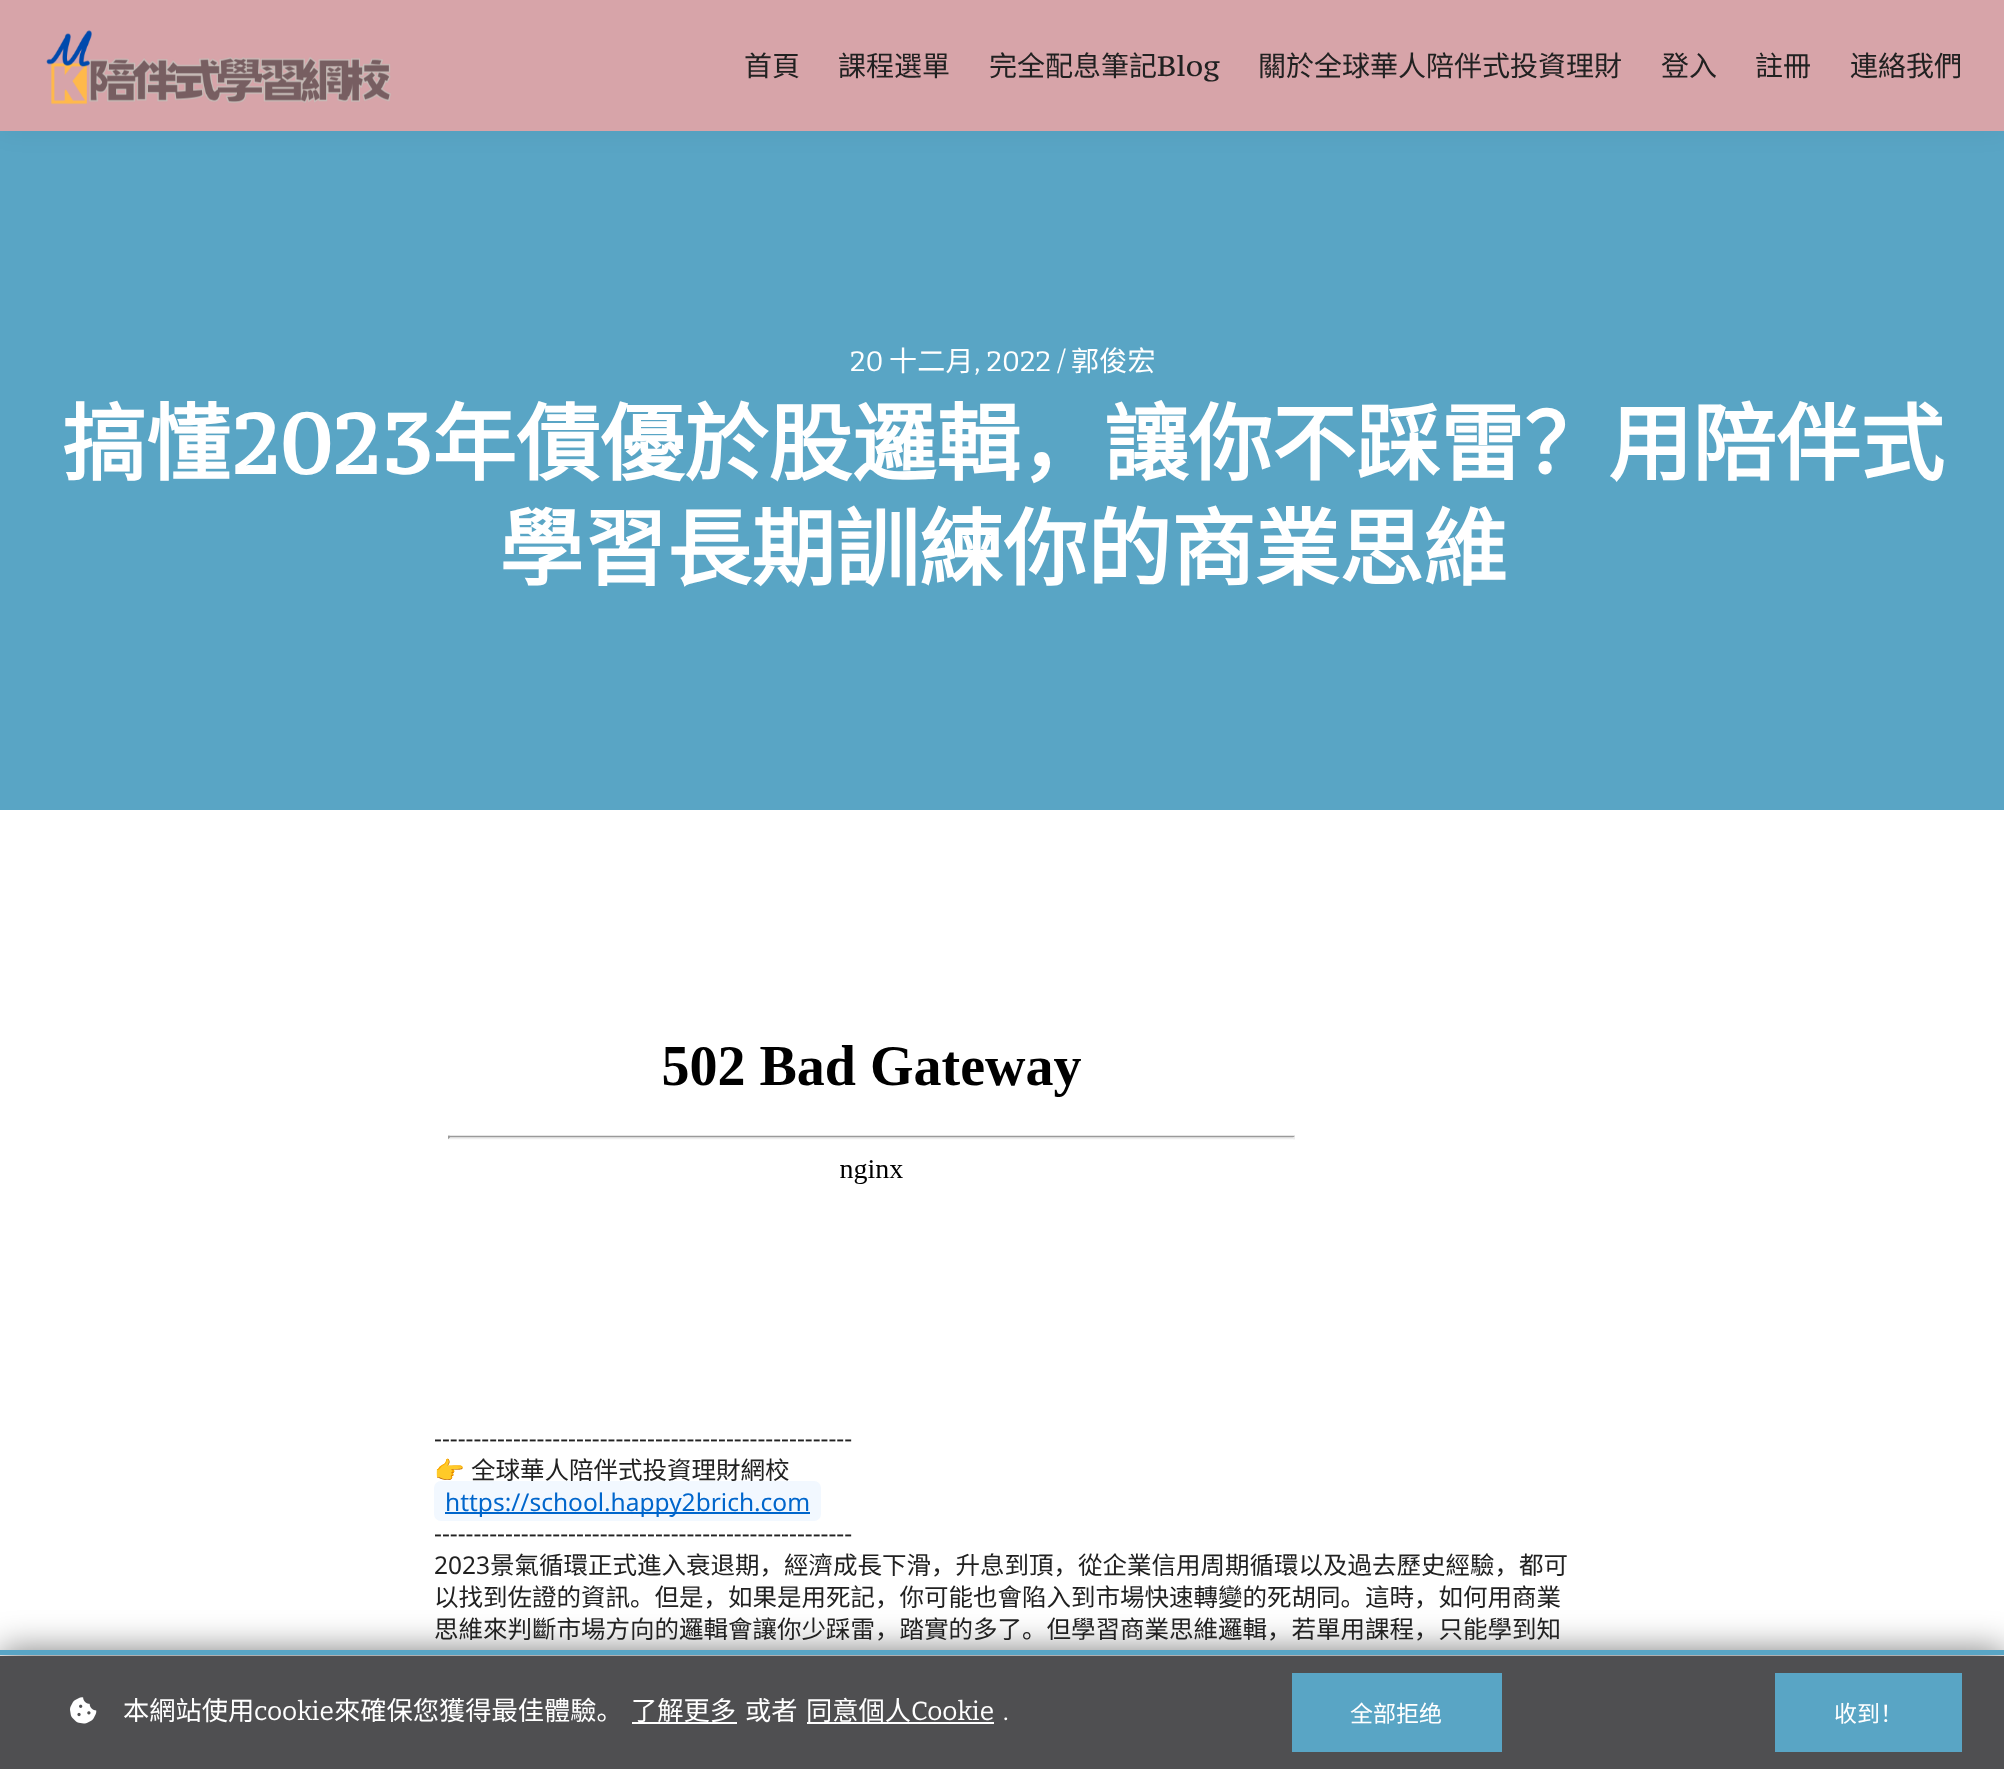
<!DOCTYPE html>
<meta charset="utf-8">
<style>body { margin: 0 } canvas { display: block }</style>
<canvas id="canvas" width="2004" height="1769"></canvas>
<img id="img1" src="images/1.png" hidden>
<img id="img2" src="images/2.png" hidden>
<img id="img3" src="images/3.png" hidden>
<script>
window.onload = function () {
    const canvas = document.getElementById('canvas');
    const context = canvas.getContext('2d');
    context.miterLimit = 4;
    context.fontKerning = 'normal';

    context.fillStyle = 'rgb(255, 255, 255)';
    context.fillRect(0, 0, 2004, 1769);
    context.fillStyle = 'rgb(89, 165, 197)';
    context.fillRect(0, 131, 2004, 679);
    context.fillStyle = 'rgba(0, 0, 0, 0.05)';
    context.filter = 'blur(13px)';
    context.beginPath();
    context.rect(0, 0, 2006, 131);
    context.fill();
    context.filter = 'none';
    context.fillStyle = 'rgb(215, 164, 169)';
    context.fillRect(0, 0, 2004, 131);
    context.drawImage(document.getElementById('img1'), 46, 30, 345, 75);
    context.drawImage(document.getElementById('img2'), 448, 1045, 847, 139);
    context.fillStyle = 'rgba(0, 0, 0, 0.5)';
    context.filter = 'blur(17.5px)';
    context.beginPath();
    context.rect(0, 1650, 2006, 119);
    context.fill();
    context.filter = 'none';
    context.fillStyle = 'rgb(79, 79, 81)';
    context.fillRect(0, 1656, 2004, 113);
    context.fillStyle = 'rgb(89, 165, 197)';
    context.fillRect(0, 1650, 2004, 5);
    context.drawImage(document.getElementById('img3'), 70, 1697, 27, 27);
    context.fillStyle = 'rgb(255, 255, 255)';
    context.fillRect(632, 1722, 105, 2);
    context.fillRect(807, 1722, 187, 2);
    context.fillStyle = 'rgb(89, 165, 197)';
    context.fillRect(1292, 1673, 210, 79);
    context.fillRect(1775, 1673, 187, 79);
    context.font = '28px Noto Sans CJK SC';
    context.fillStyle = 'rgb(33, 33, 33)';
    context.fillText('首頁', 744, 76);
    context.fillText('課程選單', 838, 76);
    context.fillText('完全配息筆記', 989, 76);
    context.font = '28px PT Serif Caption';
    context.fillText('Blog', 1157, 76);
    context.font = '28px Noto Sans CJK SC';
    context.fillText('關於全球華人陪伴式投資理財', 1258, 76);
    context.fillText('登入', 1661, 76);
    context.fillText('註冊', 1755, 76);
    context.fillText('連絡我們', 1850, 76);
    context.letterSpacing = '0.25px';
    context.font = '28px Bitter';
    context.fillStyle = 'rgb(255, 255, 255)';
    context.fillText('20', 850, 371);
    context.font = '28px Noto Sans CJK SC';
    context.fillText('十二月', 889, 371);
    context.font = '28px Bitter';
    context.fillText(', 2022 /', 974, 371);
    context.font = '28px Noto Sans CJK SC';
    context.fillText('郭俊宏', 1071, 371);
    context.letterSpacing = '0px';
    context.font = 'bold 84px Noto Sans CJK SC';
    context.fillText('搞懂', 62, 474);
    context.font = 'bold 84px PT Serif Caption';
    context.fillText('2023', 230, 474);
    context.font = 'bold 84px Noto Sans CJK SC';
    context.fillText('年債優於股邏輯，讓你不踩雷？用陪伴式', 432, 474);
    context.fillText('學習長期訓練你的商業思維', 499, 579);
    context.font = '24.5px Noto Sans';
    context.fillStyle = 'rgb(33, 33, 33)';
    context.fillText('-----------------------------------------------------', 434, 1447);
    context.font = '24.5px Noto Color Emoji';
    context.fillText('👉', 434, 1479);
    context.font = '24.5px Noto Sans CJK SC';
    context.fillText('全球華人陪伴式投資理財網校', 471, 1479);
    context.fillStyle = 'rgb(242, 248, 255)';
    context.beginPath();
    context.roundRect(434, 1481, 387, 40, 7);
    context.fill();
    context.fillStyle = 'rgb(0, 102, 204)';
    context.fillRect(445, 1512, 365, 2);
    context.font = '24.5px Noto Sans';
    context.fillText('https://school.happy2brich.com', 445, 1511);
    context.fillStyle = 'rgb(33, 33, 33)';
    context.fillText('-----------------------------------------------------', 434, 1542);
    context.fillText('2023', 434, 1574);
    context.font = '24.5px Noto Sans CJK SC';
    context.fillText('景氣循環正式進入衰退期，經濟成長下滑，升息到頂，從企業信用周期循環以及過去歷史經驗，都可', 490, 1574);
    context.fillText('以找到佐證的資訊。但是，如果是用死記，你可能也會陷入到市場快速轉變的死胡同。這時，如何用商業', 434, 1606);
    context.fillText('思維來判斷市場方向的邏輯會讓你少踩雷，踏實的多了。但學習商業思維邏輯，若單用課程，只能學到知', 434, 1638);
    context.font = '26.25px Noto Sans CJK SC';
    context.fillStyle = 'rgb(255, 255, 255)';
    context.fillText('本網站使用', 123, 1720);
    context.font = '26.25px Bitter';
    context.fillText('cookie', 254, 1720);
    context.font = '26.25px Noto Sans CJK SC';
    context.fillText('來確保您獲得最佳體驗。', 334, 1720);
    context.fillText('了解更多', 631, 1720);
    context.fillText('或者', 745, 1720);
    context.fillText('同意個人', 806, 1720);
    context.font = '26.25px Bitter';
    context.fillText('Cookie', 911, 1720);
    context.fillText('.', 1003, 1720);
    context.font = '23px Noto Sans CJK SC';
    context.fillText('全部拒绝', 1350, 1722);
    context.fillText('收到！', 1834, 1722);
};
</script>
